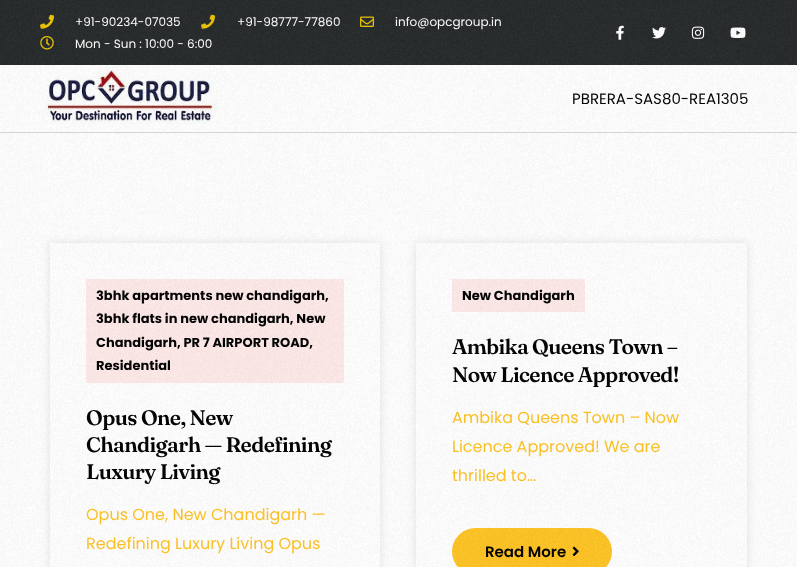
<!DOCTYPE html>
<meta charset="utf-8">
<style>body { margin: 0 } canvas { display: block }</style>
<canvas id="canvas" width="797" height="567"></canvas>
<img id="img1" src="images/2.png" hidden>
<img id="img2" src="images/3.png" hidden>
<img id="img3" src="images/4.png" hidden>
<img id="img4" src="images/5.png" hidden>
<img id="img5" src="images/6.png" hidden>
<img id="img6" src="images/7.png" hidden>
<img id="img7" src="images/8.png" hidden>
<img id="img8" src="images/9.png" hidden>
<img id="img9" src="images/10.png" hidden>
<img id="img10" src="images/1.png" hidden>
<script>
window.onload = function () {
    const canvas = document.getElementById('canvas');
    const context = canvas.getContext('2d');
    context.miterLimit = 4;
    context.fontKerning = 'normal';

    context.fillStyle = 'rgb(255, 255, 255)';
    context.fillRect(0, 0, 797, 567);
    context.fillStyle = 'rgb(38, 42, 43)';
    context.fillRect(0, 0, 797, 65);
    context.drawImage(document.getElementById('img1'), 40, 14, 14, 15);
    context.drawImage(document.getElementById('img1'), 201, 14, 14, 15);
    context.drawImage(document.getElementById('img2'), 360, 16, 14, 11);
    context.drawImage(document.getElementById('img3'), 40, 36, 14, 14);
    context.drawImage(document.getElementById('img4'), 616, 25, 8, 15);
    context.drawImage(document.getElementById('img5'), 652, 27, 14, 12);
    context.drawImage(document.getElementById('img6'), 691, 26, 14, 13);
    context.drawImage(document.getElementById('img7'), 730, 27, 16, 11);
    context.fillStyle = 'rgb(216, 216, 216)';
    context.fillRect(0, 132, 797, 1);
    context.drawImage(document.getElementById('img8'), 46, 66, 171, 58);
    context.save();
    context.beginPath();
    context.moveTo(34, 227);
    context.lineTo(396, 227);
    context.lineTo(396, 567);
    context.lineTo(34, 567);
    context.closePath();
    context.moveTo(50, 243);
    context.lineTo(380, 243);
    context.lineTo(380, 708);
    context.lineTo(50, 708);
    context.closePath();
    context.clip('evenodd');
    context.fillStyle = 'rgba(0, 0, 0, 0.1)';
    context.filter = 'blur(5px)';
    context.beginPath();
    context.rect(50, 243, 330, 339);
    context.fill();
    context.filter = 'none';
    context.restore();
    context.fillStyle = 'rgb(255, 234, 234)';
    context.fillRect(86, 279, 258, 104);
    context.save();
    context.beginPath();
    context.moveTo(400, 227);
    context.lineTo(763, 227);
    context.lineTo(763, 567);
    context.lineTo(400, 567);
    context.closePath();
    context.moveTo(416, 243);
    context.lineTo(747, 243);
    context.lineTo(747, 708);
    context.lineTo(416, 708);
    context.closePath();
    context.clip('evenodd');
    context.fillStyle = 'rgba(0, 0, 0, 0.1)';
    context.filter = 'blur(5px)';
    context.beginPath();
    context.rect(416, 243, 331, 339);
    context.fill();
    context.filter = 'none';
    context.restore();
    context.fillRect(452, 279, 133, 33);
    context.fillStyle = 'rgb(255, 196, 36)';
    context.beginPath();
    context.roundRect(452, 528, 160, 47, 23.5);
    context.fill();
    context.drawImage(document.getElementById('img9'), 572, 546, 7, 10);
    context.font = '12px Poppins';
    context.fillStyle = 'rgb(255, 255, 255)';
    context.fillText('+91-90234-07035', 75, 26);
    context.fillText('+91-98777-77860', 237, 26);
    context.fillText('info@opcgroup.in', 395, 26);
    context.fillText('Mon - Sun : 10:00 - 6:00', 75, 48);
    context.font = '15px Poppins';
    context.fillStyle = 'rgb(0, 0, 0)';
    context.fillText('PBRERA-SAS80-REA1305', 572, 104);
    context.font = 'bold 13px Poppins';
    context.fillText('3bhk apartments new chandigarh,', 96, 300);
    context.fillText('3bhk flats in new chandigarh, New', 96, 323);
    context.fillText('Chandigarh, PR 7 AIRPORT ROAD,', 96, 347);
    context.fillText('Residential', 96, 370);
    context.letterSpacing = '-0.6px';
    context.font = '600 21px Fraunces';
    context.fillText('Opus One, New', 86, 425);
    context.fillText('Chandigarh — Redefining', 86, 452);
    context.fillText('Luxury Living', 86, 479);
    context.letterSpacing = '0px';
    context.font = '16px Poppins';
    context.fillStyle = 'rgb(255, 196, 36)';
    context.fillText('Opus One, New Chandigarh —', 86, 520);
    context.fillText('Redefining Luxury Living Opus', 86, 549);
    context.font = 'bold 13px Poppins';
    context.fillStyle = 'rgb(0, 0, 0)';
    context.fillText('New Chandigarh', 462, 300);
    context.letterSpacing = '-0.6px';
    context.font = '600 21px Fraunces';
    context.fillText('Ambika Queens Town –', 452, 354);
    context.fillText('Now Licence Approved!', 452, 382);
    context.letterSpacing = '0px';
    context.font = '16px Poppins';
    context.fillStyle = 'rgb(255, 196, 36)';
    context.fillText('Ambika Queens Town – Now', 452, 423);
    context.fillText('Licence Approved! We are', 452, 452);
    context.fillText('thrilled to…', 452, 481);
    context.font = '600 15px Poppins';
    context.fillStyle = 'rgb(0, 0, 0)';
    context.fillText('Read More', 485, 557);
    context.drawImage(document.getElementById('img10'), 0, 0, 797, 567);
};
</script>
